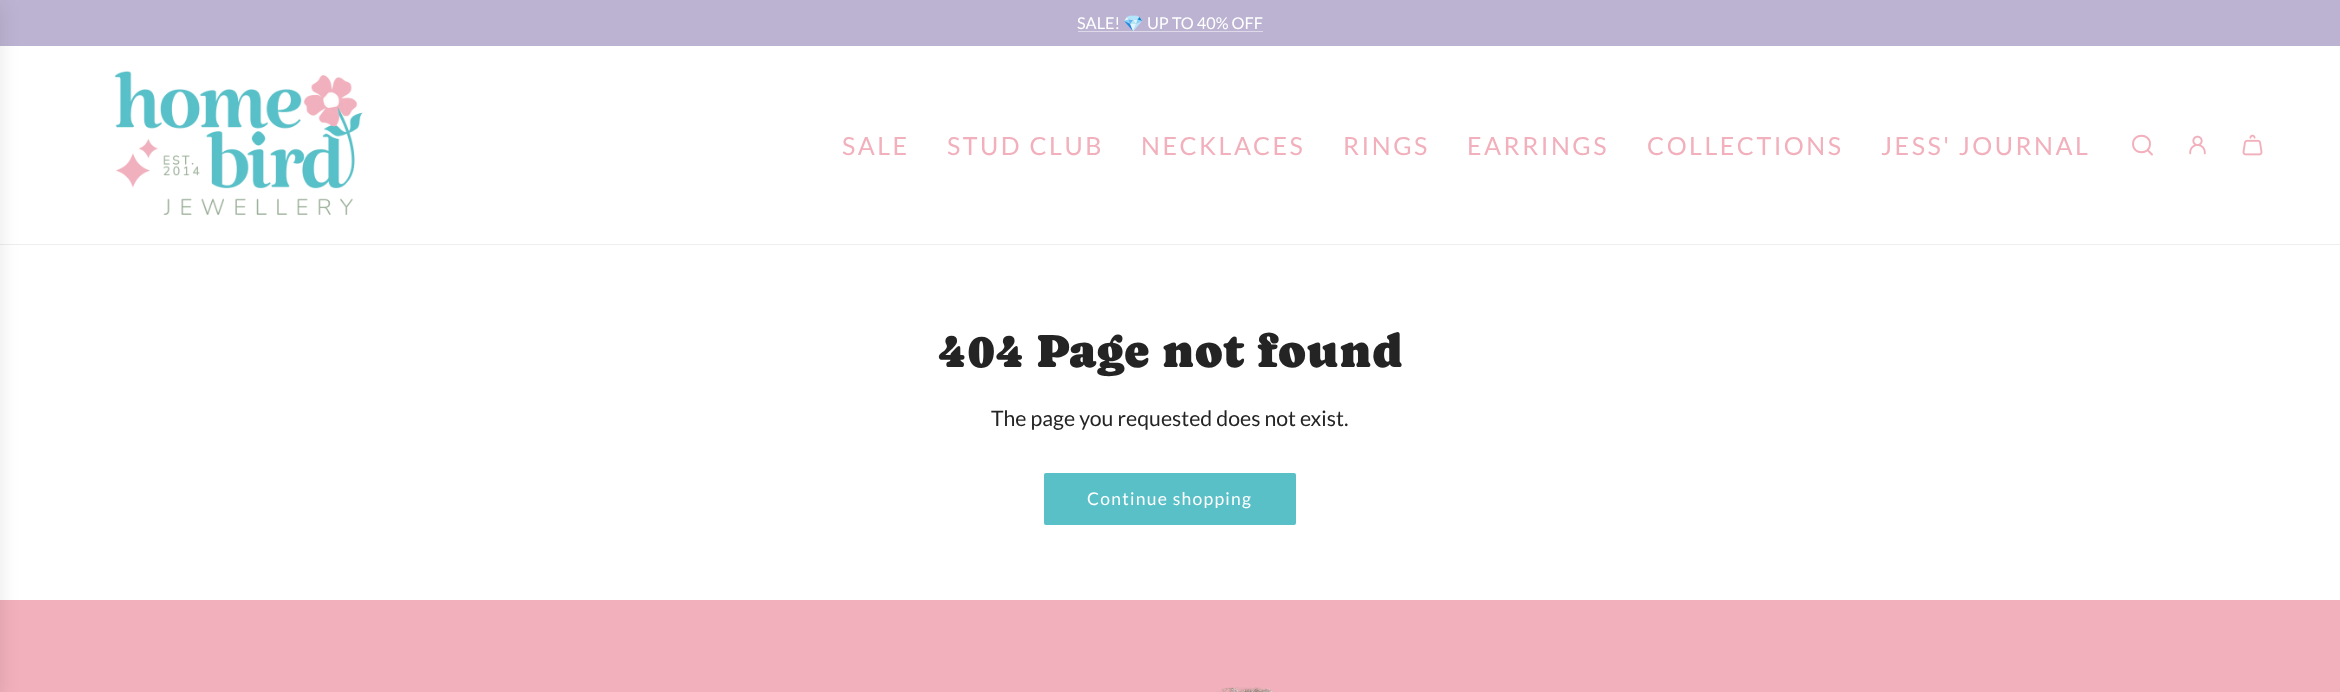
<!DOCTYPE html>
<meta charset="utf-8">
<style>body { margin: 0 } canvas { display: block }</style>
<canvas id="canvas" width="2340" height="692"></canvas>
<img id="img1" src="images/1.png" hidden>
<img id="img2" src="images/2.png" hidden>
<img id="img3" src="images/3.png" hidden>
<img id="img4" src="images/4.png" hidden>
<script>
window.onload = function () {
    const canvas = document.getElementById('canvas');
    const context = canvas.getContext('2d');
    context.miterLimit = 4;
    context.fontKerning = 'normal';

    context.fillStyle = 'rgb(255, 255, 255)';
    context.fillRect(0, 0, 2340, 692);
    context.fillStyle = 'rgb(188, 179, 210)';
    context.fillRect(0, 0, 2340, 46);
    context.fillStyle = 'rgb(222, 217, 233)';
    context.fillRect(1078, 31, 185, 1);
    context.fillStyle = 'rgb(238, 238, 238)';
    context.fillRect(0, 244, 2340, 1);
    context.fillStyle = 'rgb(241, 176, 188)';
    context.fillRect(0, 600, 2340, 92);
    context.fillStyle = 'rgba(0, 0, 0, 0.1)';
    context.filter = 'blur(9.5px)';
    context.beginPath();
    context.rect(-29, 6, 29, 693);
    context.fill();
    context.filter = 'none';
    context.drawImage(document.getElementById('img1'), 114, 71, 249, 144);
    context.beginPath();
    context.moveTo(2147.5, 150);
    context.lineTo(2152, 154.5);
    context.moveTo(2133, 144);
    context.bezierCurveTo(2133, 155, 2150, 155, 2150, 144);
    context.bezierCurveTo(2150, 133, 2133, 133, 2133, 144);
    context.closePath();
    context.strokeStyle = 'rgb(241, 176, 188)';
    context.lineWidth = 1.9;
    context.lineCap = 'round';
    context.lineJoin = 'round';
    context.stroke();
    context.drawImage(document.getElementById('img2'), 2189, 135, 17, 20);
    context.drawImage(document.getElementById('img3'), 2242, 134, 21, 22);
    context.fillStyle = 'rgb(89, 192, 200)';
    context.beginPath();
    context.roundRect(1044, 473, 252, 52, 2);
    context.fill();
    context.drawImage(document.getElementById('img4'), 1215, 687, 59, 5);
    context.font = '16.25px Lato';
    context.fillStyle = 'rgb(255, 255, 255)';
    context.fillText('SALE!', 1077, 29);
    context.font = '16.25px Noto Color Emoji';
    context.fillText('💎', 1123, 29);
    context.font = '16.25px Lato';
    context.fillText('UP TO 40% OFF', 1147, 29);
    context.letterSpacing = '2.5px';
    context.font = '25px Lato';
    context.fillStyle = 'rgb(241, 176, 188)';
    context.fillText('SALE', 842, 155);
    context.fillText('STUD CLUB', 947, 155);
    context.fillText('NECKLACES', 1141, 155);
    context.fillText('RINGS', 1343, 155);
    context.fillText('EARRINGS', 1467, 155);
    context.fillText('COLLECTIONS', 1647, 155);
    context.fillText('JESS\' JOURNAL', 1881, 155);
    context.letterSpacing = '0.5px';
    context.font = '47.5px Caprasimo';
    context.fillStyle = 'rgb(36, 36, 36)';
    context.fillText('404 Page not found', 938, 367);
    context.letterSpacing = '0px';
    context.font = '21.25px Lato';
    context.fillText('The page you requested does not exist.', 991, 426);
    context.letterSpacing = '1.25px';
    context.font = '17.5px Lato';
    context.fillStyle = 'rgb(255, 255, 255)';
    context.fillText('Continue shopping', 1087, 505);
};
</script>
